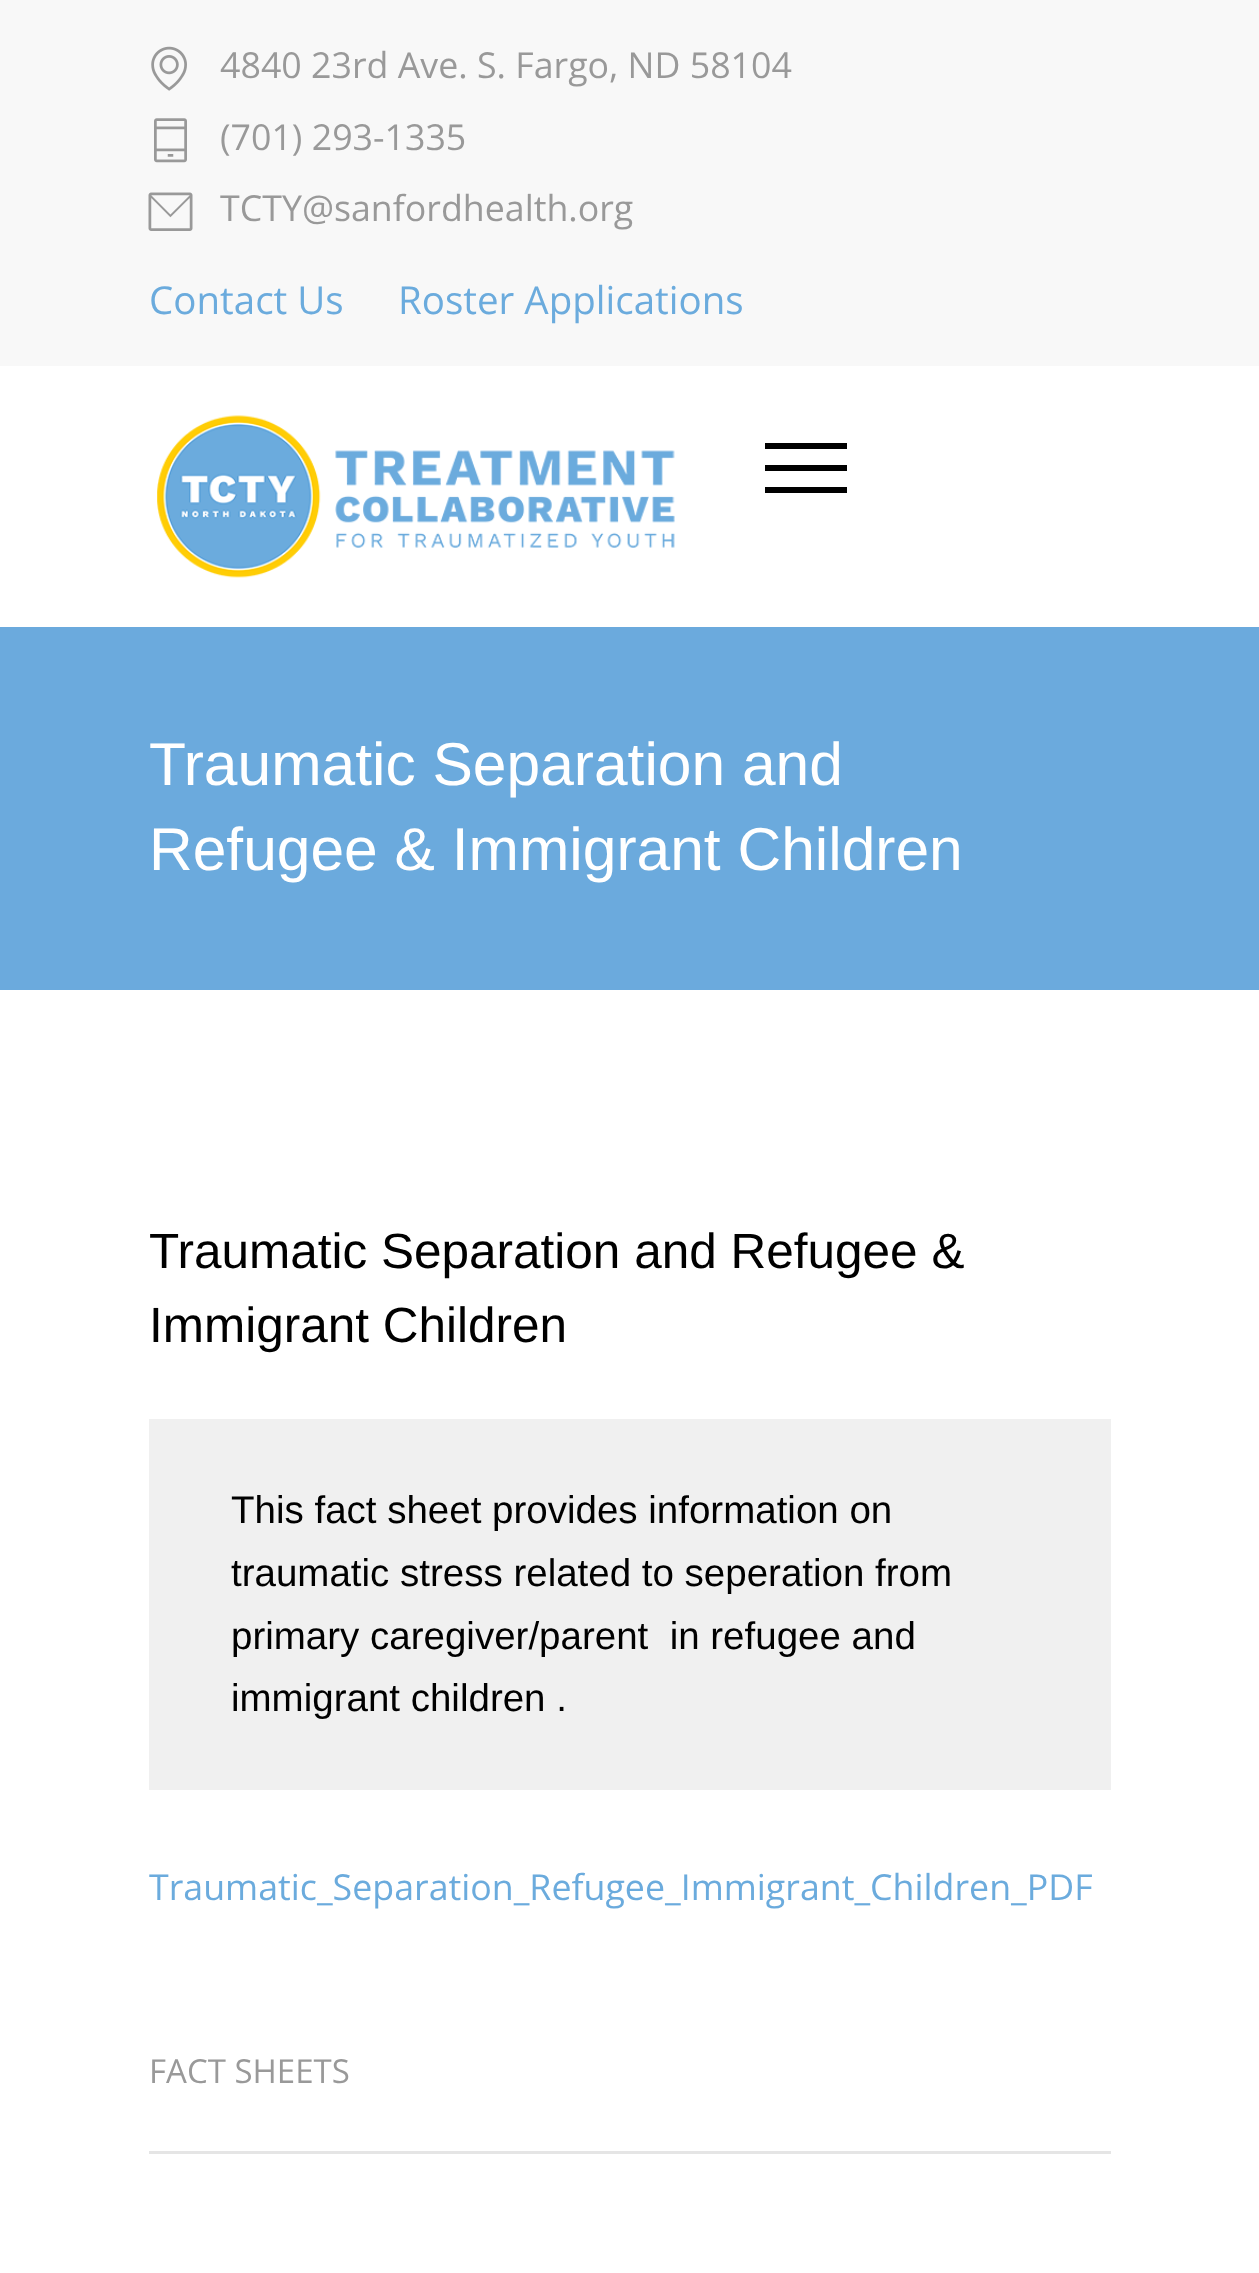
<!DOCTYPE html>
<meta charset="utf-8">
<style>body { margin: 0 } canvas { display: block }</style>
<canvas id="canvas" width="1259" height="2273"></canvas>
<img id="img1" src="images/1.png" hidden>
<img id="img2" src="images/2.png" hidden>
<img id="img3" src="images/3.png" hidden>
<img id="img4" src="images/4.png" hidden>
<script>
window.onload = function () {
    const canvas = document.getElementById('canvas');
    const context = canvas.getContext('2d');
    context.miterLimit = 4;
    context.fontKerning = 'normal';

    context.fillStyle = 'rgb(255, 255, 255)';
    context.fillRect(0, 0, 1259, 2273);
    context.fillStyle = 'rgb(248, 248, 248)';
    context.fillRect(0, 0, 1259, 366);
    context.drawImage(document.getElementById('img1'), 151, 46, 36, 45);
    context.drawImage(document.getElementById('img2'), 154, 118, 33, 45);
    context.drawImage(document.getElementById('img3'), 148, 192, 45, 39);
    context.drawImage(document.getElementById('img4'), 157, 415, 518, 163);
    context.fillStyle = 'rgb(0, 0, 0)';
    context.fillRect(765, 443, 82, 6);
    context.fillRect(765, 465, 82, 6);
    context.fillRect(765, 487, 82, 6);
    context.fillStyle = 'rgb(107, 170, 221)';
    context.fillRect(0, 627, 1259, 363);
    context.fillStyle = 'rgb(229, 229, 229)';
    context.fillRect(149, 2151, 962, 3);
    context.fillStyle = 'rgb(240, 240, 240)';
    context.fillRect(149, 1419, 962, 371);
    context.font = '35.75px Open Sans';
    context.fillStyle = 'rgb(153, 153, 153)';
    context.fillText('4840 23rd Ave. S. Fargo, ND 58104', 220, 78);
    context.fillText('(701) 293-1335', 220, 150);
    context.fillText('TCTY@sanfordhealth.org', 220, 221);
    context.font = '38.5px Open Sans';
    context.fillStyle = 'rgb(107, 171, 221)';
    context.fillText('Contact Us', 149, 314);
    context.fillText('Roster Applications', 398, 314);
    context.font = '60.5px Liberation Sans';
    context.fillStyle = 'rgb(255, 255, 255)';
    context.fillText('Traumatic Separation and', 149, 785);
    context.fillText('Refugee & Immigrant Children', 149, 870);
    context.font = '49.5px Liberation Sans';
    context.fillStyle = 'rgb(0, 0, 0)';
    context.fillText('Traumatic Separation and Refugee &', 149, 1268);
    context.fillText('Immigrant Children', 149, 1342);
    context.font = '38.5px Liberation Sans';
    context.fillText('This fact sheet provides information on', 231, 1523);
    context.fillText('traumatic stress related to seperation from', 231, 1586);
    context.fillText('primary caregiver/parent  in refugee and', 231, 1649);
    context.fillText('immigrant children .', 231, 1711);
    context.font = '35.75px Open Sans';
    context.fillStyle = 'rgb(107, 171, 221)';
    context.fillText('Traumatic_Separation_Refugee_Immigrant_Children_PDF', 149, 1900);
    context.font = '33px Open Sans';
    context.fillStyle = 'rgb(153, 153, 153)';
    context.fillText('FACT SHEETS', 149, 2083);
};
</script>
